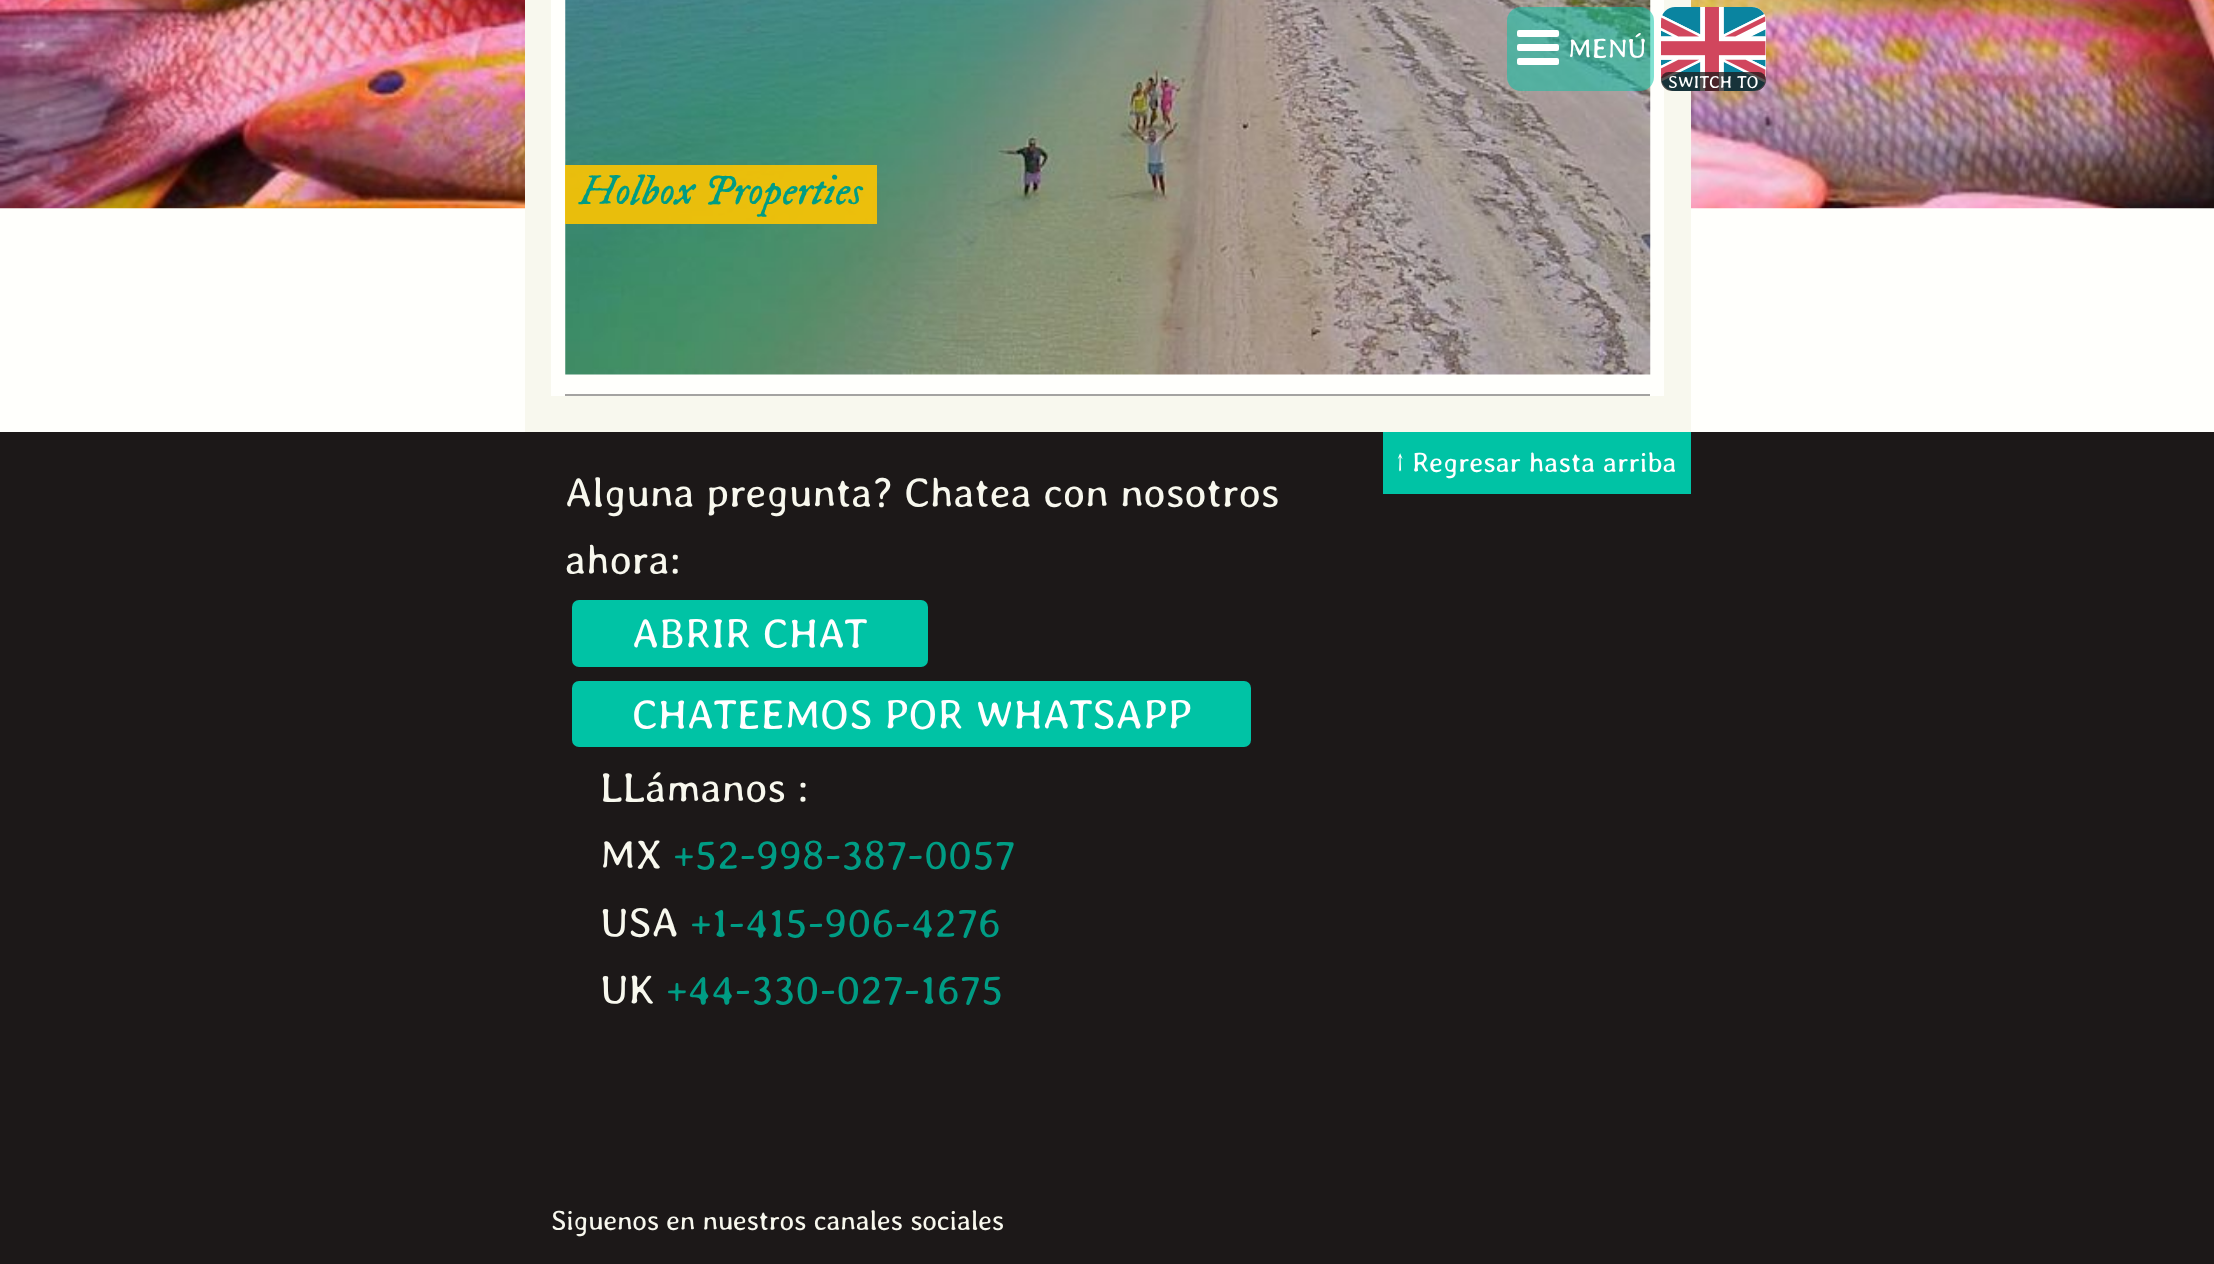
<!DOCTYPE html>
<meta charset="utf-8">
<style>body { margin: 0 } canvas { display: block }</style>
<canvas id="canvas" width="2214" height="1264"></canvas>
<img id="img1" src="images/2.png" hidden>
<img id="img2" src="images/3.png" hidden>
<img id="img3" src="images/1.png" hidden>
<script>
window.onload = function () {
    const canvas = document.getElementById('canvas');
    const context = canvas.getContext('2d');
    context.miterLimit = 4;
    context.fontKerning = 'normal';

    context.fillStyle = 'rgb(255, 255, 252)';
    context.fillRect(0, 0, 2214, 1264);
    context.drawImage(document.getElementById('img1'), 0, 0, 2214, 209);
    context.fillStyle = 'rgb(248, 248, 238)';
    context.fillRect(525, 0, 1166, 432);
    context.fillStyle = 'rgb(255, 255, 252)';
    context.fillRect(551, 0, 1113, 396);
    context.drawImage(document.getElementById('img2'), 565, 0, 1086, 375);
    context.fillStyle = 'rgba(0, 195, 165, 0.5)';
    context.beginPath();
    context.roundRect(1507, 7, 147, 84, 14);
    context.fill();
    context.fillStyle = 'rgb(255, 255, 255)';
    context.beginPath();
    context.roundRect(1517, 44, 42, 7, 2);
    context.fill();
    context.beginPath();
    context.roundRect(1517, 30, 42, 7, 2);
    context.fill();
    context.beginPath();
    context.roundRect(1517, 58, 42, 7, 2);
    context.fill();
    context.beginPath();
    context.roundRect(1661, 7, 105, 84, 14);
    context.fill();
    context.drawImage(document.getElementById('img3'), 1661, 7, 105, 84);
    context.fillStyle = 'rgba(28, 24, 24, 0.75)';
    context.beginPath();
    context.roundRect(1661, 72, 105, 19, [9.5, 9.5, 14, 14]);
    context.fill();
    context.fillStyle = 'rgba(255, 197, 0, 0.89)';
    context.fillRect(565, 165, 312, 59);
    context.fillStyle = 'rgb(164, 163, 161)';
    context.fillRect(565, 394, 1085, 2);
    context.fillStyle = 'rgb(28, 24, 24)';
    context.fillRect(0, 432, 2214, 832);
    context.fillStyle = 'rgb(0, 195, 165)';
    context.fillRect(1383, 432, 308, 62);
    context.beginPath();
    context.roundRect(572, 600, 356, 67, 7);
    context.fill();
    context.beginPath();
    context.roundRect(572, 681, 679, 66, 7);
    context.fill();
    context.font = '300 28px Averia Libre';
    context.fillStyle = 'rgb(255, 255, 255)';
    context.fillText('MENÚ', 1568, 58);
    context.font = '300 17.5px Averia Libre';
    context.fillText('SWITCH TO', 1668, 88);
    context.font = 'italic 42px IM FELL DW Pica';
    context.fillStyle = 'rgb(0, 156, 132)';
    context.fillText('Holbox Properties', 579, 204);
    context.font = '28px Caladea';
    context.fillStyle = 'rgb(255, 255, 255)';
    context.fillText('↑', 1396, 472);
    context.font = '300 28px Averia Libre';
    context.fillText('Regresar hasta arriba', 1412, 472);
    context.font = '300 42px Averia Libre';
    context.fillStyle = 'rgb(248, 248, 238)';
    context.fillText('Alguna pregunta? Chatea con nosotros', 565, 507);
    context.fillText('ahora:', 565, 574);
    context.fillStyle = 'rgb(255, 255, 255)';
    context.fillText('ABRIR CHAT', 632, 648);
    context.fillText('CHATEEMOS POR WHATSAPP', 632, 729);
    context.fillStyle = 'rgb(248, 248, 238)';
    context.fillText('LLámanos :', 600, 802);
    context.fillText('MX', 600, 869);
    context.fillStyle = 'rgb(0, 156, 132)';
    context.fillText('+52-998-387-0057', 673, 869);
    context.fillStyle = 'rgb(248, 248, 238)';
    context.fillText('USA', 600, 937);
    context.fillStyle = 'rgb(0, 156, 132)';
    context.fillText('+1-415-906-4276', 690, 937);
    context.fillStyle = 'rgb(248, 248, 238)';
    context.fillText('UK', 600, 1004);
    context.fillStyle = 'rgb(0, 156, 132)';
    context.fillText('+44-330-027-1675', 666, 1004);
    context.letterSpacing = '-0.3px';
    context.font = '300 28px Averia Libre';
    context.fillStyle = 'rgb(248, 248, 238)';
    context.fillText('Siguenos en nuestros canales sociales', 551, 1230);
};
</script>
